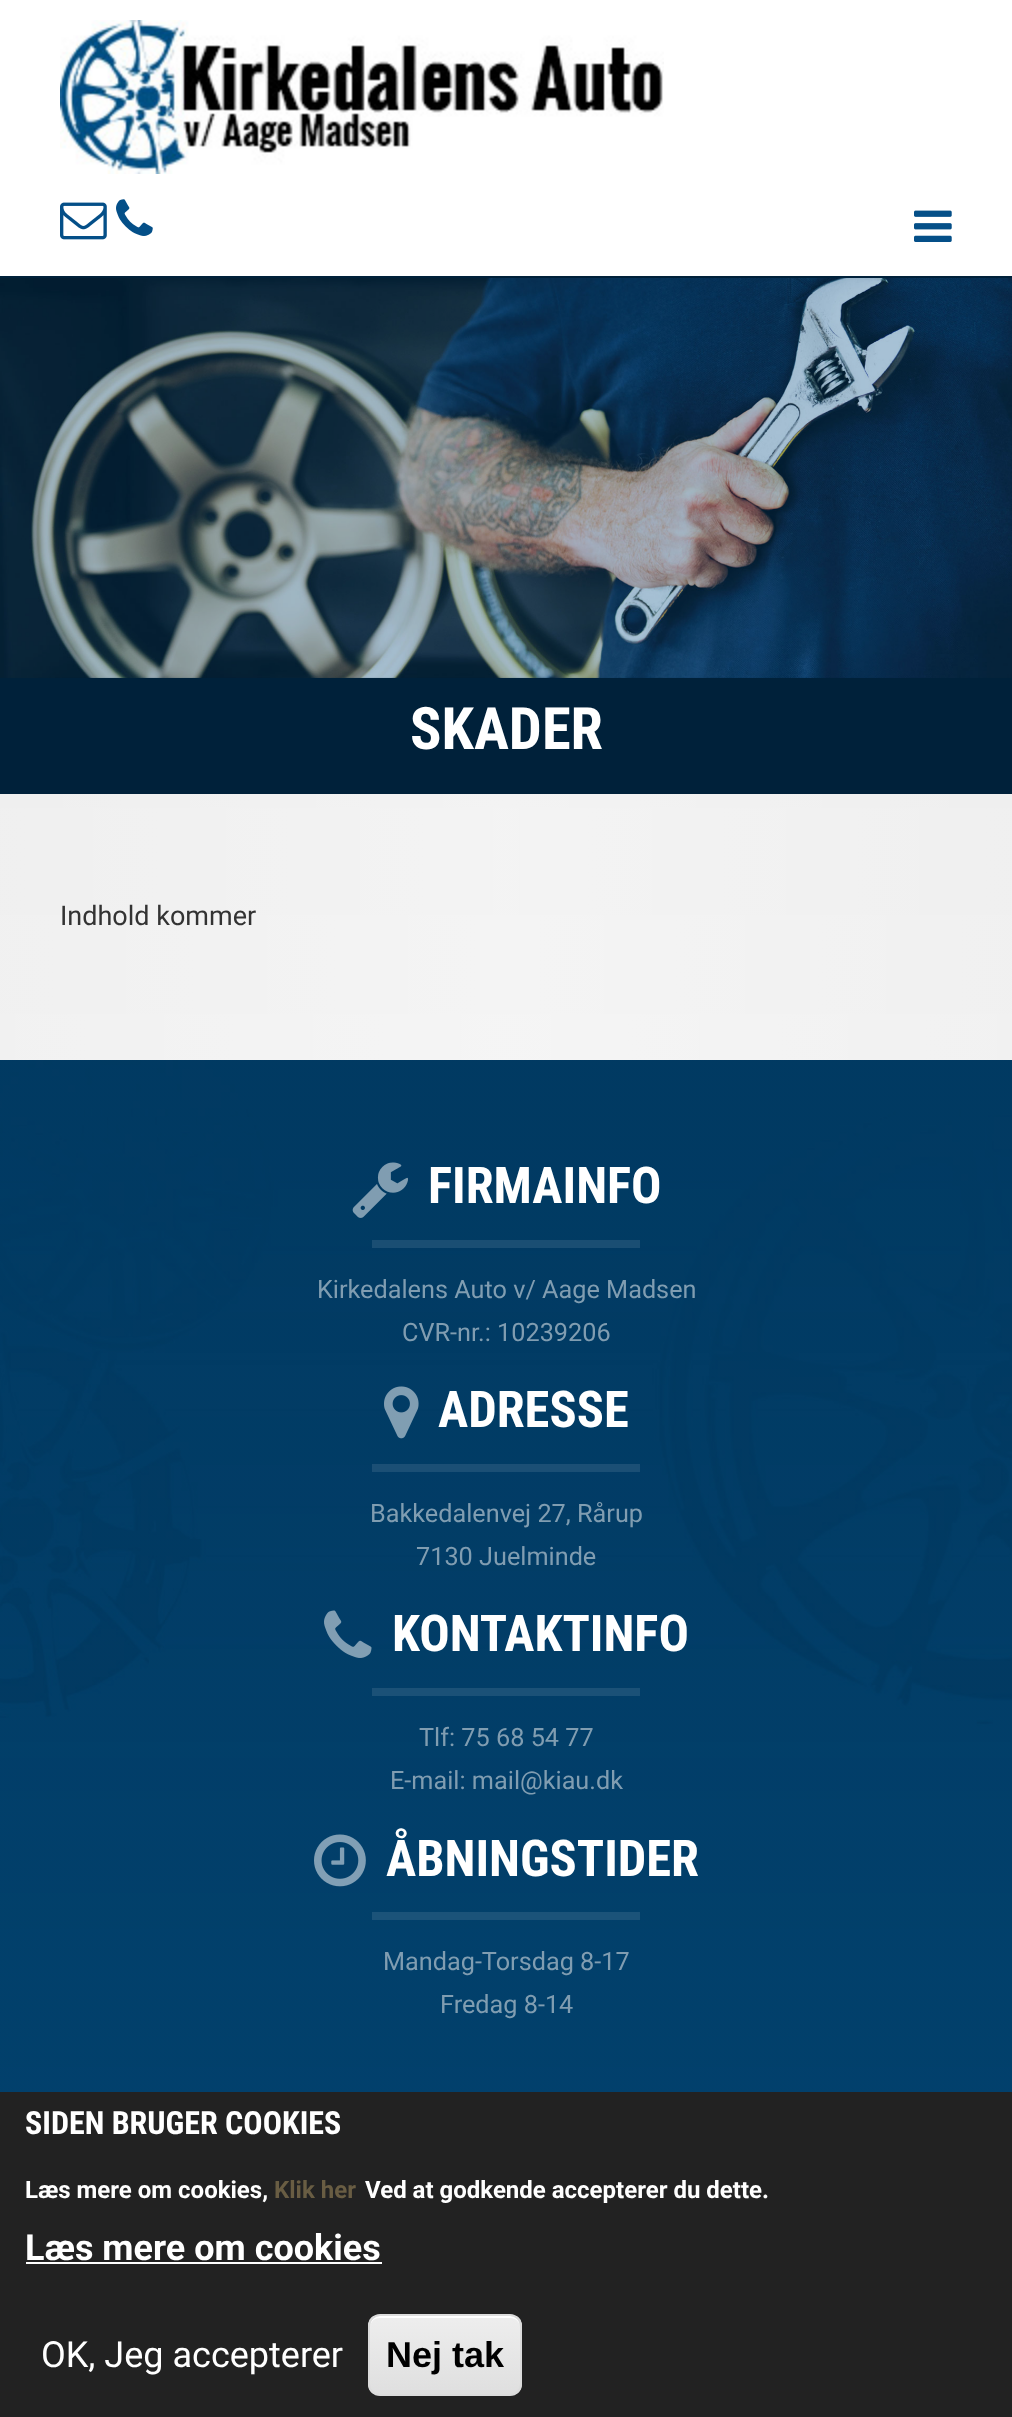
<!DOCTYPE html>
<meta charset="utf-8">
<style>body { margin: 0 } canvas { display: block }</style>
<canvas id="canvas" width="1012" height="2417"></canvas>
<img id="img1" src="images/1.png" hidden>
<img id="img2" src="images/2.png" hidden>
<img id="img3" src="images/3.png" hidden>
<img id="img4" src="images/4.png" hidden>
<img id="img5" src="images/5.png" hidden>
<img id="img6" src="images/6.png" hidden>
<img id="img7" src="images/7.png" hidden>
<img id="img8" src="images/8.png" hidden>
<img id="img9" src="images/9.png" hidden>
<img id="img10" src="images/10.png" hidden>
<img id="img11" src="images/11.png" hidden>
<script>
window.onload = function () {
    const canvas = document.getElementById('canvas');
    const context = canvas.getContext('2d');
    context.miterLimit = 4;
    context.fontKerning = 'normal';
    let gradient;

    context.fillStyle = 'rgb(0, 33, 58)';
    context.fillRect(0, 0, 1012, 2417);
    context.fillStyle = 'rgb(255, 255, 255)';
    context.fillRect(0, 0, 1012, 276);
    context.drawImage(document.getElementById('img1'), 60, 20, 604, 154);
    context.drawImage(document.getElementById('img2'), 60, 202, 47, 38);
    context.drawImage(document.getElementById('img3'), 116, 199, 37, 37);
    context.drawImage(document.getElementById('img4'), 914, 210, 38, 32);
    context.drawImage(document.getElementById('img5'), 0, 278, 1012, 400);
    context.drawImage(document.getElementById('img6'), 0, 794, 1012, 266);
    context.drawImage(document.getElementById('img7'), 0, 1060, 1012, 1032);
    context.drawImage(document.getElementById('img8'), 352, 1162, 56, 56);
    context.fillStyle = 'rgb(26, 78, 115)';
    context.fillRect(372, 1240, 268, 8);
    context.drawImage(document.getElementById('img9'), 384, 1386, 35, 53);
    context.fillStyle = 'rgb(27, 79, 117)';
    context.fillRect(372, 1464, 268, 8);
    context.drawImage(document.getElementById('img10'), 324, 1610, 48, 48);
    context.fillStyle = 'rgb(27, 81, 119)';
    context.fillRect(372, 1688, 268, 8);
    context.drawImage(document.getElementById('img11'), 314, 1834, 52, 53);
    context.fillStyle = 'rgb(27, 83, 121)';
    context.fillRect(372, 1912, 268, 8);
    context.fillStyle = 'rgb(34, 34, 34)';
    context.fillRect(0, 2092, 1012, 325);
    context.fillStyle = 'rgb(255, 255, 255)';
    context.fillRect(26, 2262, 356, 2);
    context.save();
    context.beginPath();
    context.roundRect(368, 2314, 154, 82, 12);
    context.clip();
    gradient = context.createLinearGradient(445, 2316, 445, 2394);
    gradient.addColorStop(0.05, 'rgb(237, 237, 237)');
    gradient.addColorStop(1, 'rgb(223, 223, 223)');
    context.fillStyle = gradient;
    context.fillRect(368, 2316, 154, 78);
    context.restore();
    context.beginPath();
    context.moveTo(380, 2318);
    context.lineTo(510, 2318);
    context.bezierCurveTo(516, 2318, 520, 2322, 520, 2328);
    context.bezierCurveTo(520, 2311, 500, 2316, 488, 2316);
    context.lineTo(402, 2316);
    context.bezierCurveTo(390, 2316, 370, 2311, 370, 2328);
    context.bezierCurveTo(370, 2322, 374, 2318, 380, 2318);
    context.closePath();
    context.fill();
    context.beginPath();
    context.roundRect(369, 2315, 152, 80, 11);
    context.strokeStyle = 'rgb(220, 220, 220)';
    context.lineWidth = 2;
    context.stroke();
    context.font = 'bold 58.5px Roboto Condensed';
    context.fillText('SKADER', 410, 749);
    context.font = '27px Roboto';
    context.fillStyle = 'rgb(51, 51, 51)';
    context.fillText('Indhold kommer', 60, 925);
    context.font = 'bold 50.5px Roboto Condensed';
    context.fillStyle = 'rgb(255, 255, 255)';
    context.fillText('FIRMAINFO', 428, 1203);
    context.font = '25.25px Roboto';
    context.fillStyle = 'rgb(128, 157, 177)';
    context.fillText('Kirkedalens Auto v/ Aage Madsen', 317, 1298);
    context.fillText('CVR-nr.: 10239206', 402, 1341);
    context.font = 'bold 50.5px Roboto Condensed';
    context.fillStyle = 'rgb(255, 255, 255)';
    context.fillText('ADRESSE', 438, 1427);
    context.font = '25.25px Roboto';
    context.fillStyle = 'rgb(128, 157, 177)';
    context.fillText('Bakkedalenvej 27, Rårup', 370, 1522);
    context.fillText('7130 Juelminde', 416, 1565);
    context.font = 'bold 50.5px Roboto Condensed';
    context.fillStyle = 'rgb(255, 255, 255)';
    context.fillText('KONTAKTINFO', 392, 1651);
    context.font = '25.25px Roboto';
    context.fillStyle = 'rgb(128, 157, 177)';
    context.fillText('Tlf: 75 68 54 77', 419, 1746);
    context.fillText('E-mail: mail@kiau.dk', 390, 1789);
    context.font = 'bold 50.5px Roboto Condensed';
    context.fillStyle = 'rgb(255, 255, 255)';
    context.fillText('ÅBNINGSTIDER', 386, 1876);
    context.font = '25.25px Roboto';
    context.fillStyle = 'rgb(128, 157, 177)';
    context.fillText('Mandag-Torsdag 8-17', 383, 1970);
    context.fillText('Fredag 8-14', 440, 2013);
    context.font = 'bold 32px Roboto Condensed';
    context.fillStyle = 'rgb(255, 255, 255)';
    context.fillText('SIDEN BRUGER COOKIES', 25, 2134);
    context.font = 'bold 24px Roboto';
    context.fillText('Læs mere om cookies,', 25, 2198);
    context.fillStyle = 'rgb(105, 93, 67)';
    context.fillText('Klik her', 274, 2198);
    context.fillStyle = 'rgb(255, 255, 255)';
    context.fillText('Ved at godkende accepterer du dette.', 365, 2198);
    context.font = 'bold 36px Roboto';
    context.fillText('Læs mere om cookies', 25, 2260);
    context.font = '36px Roboto';
    context.fillText('OK, Jeg accepterer', 41, 2367);
    context.font = 'bold 36px Liberation Sans';
    context.fillStyle = 'rgb(0, 0, 0)';
    context.fillText('Nej tak', 386, 2367);
};
</script>
